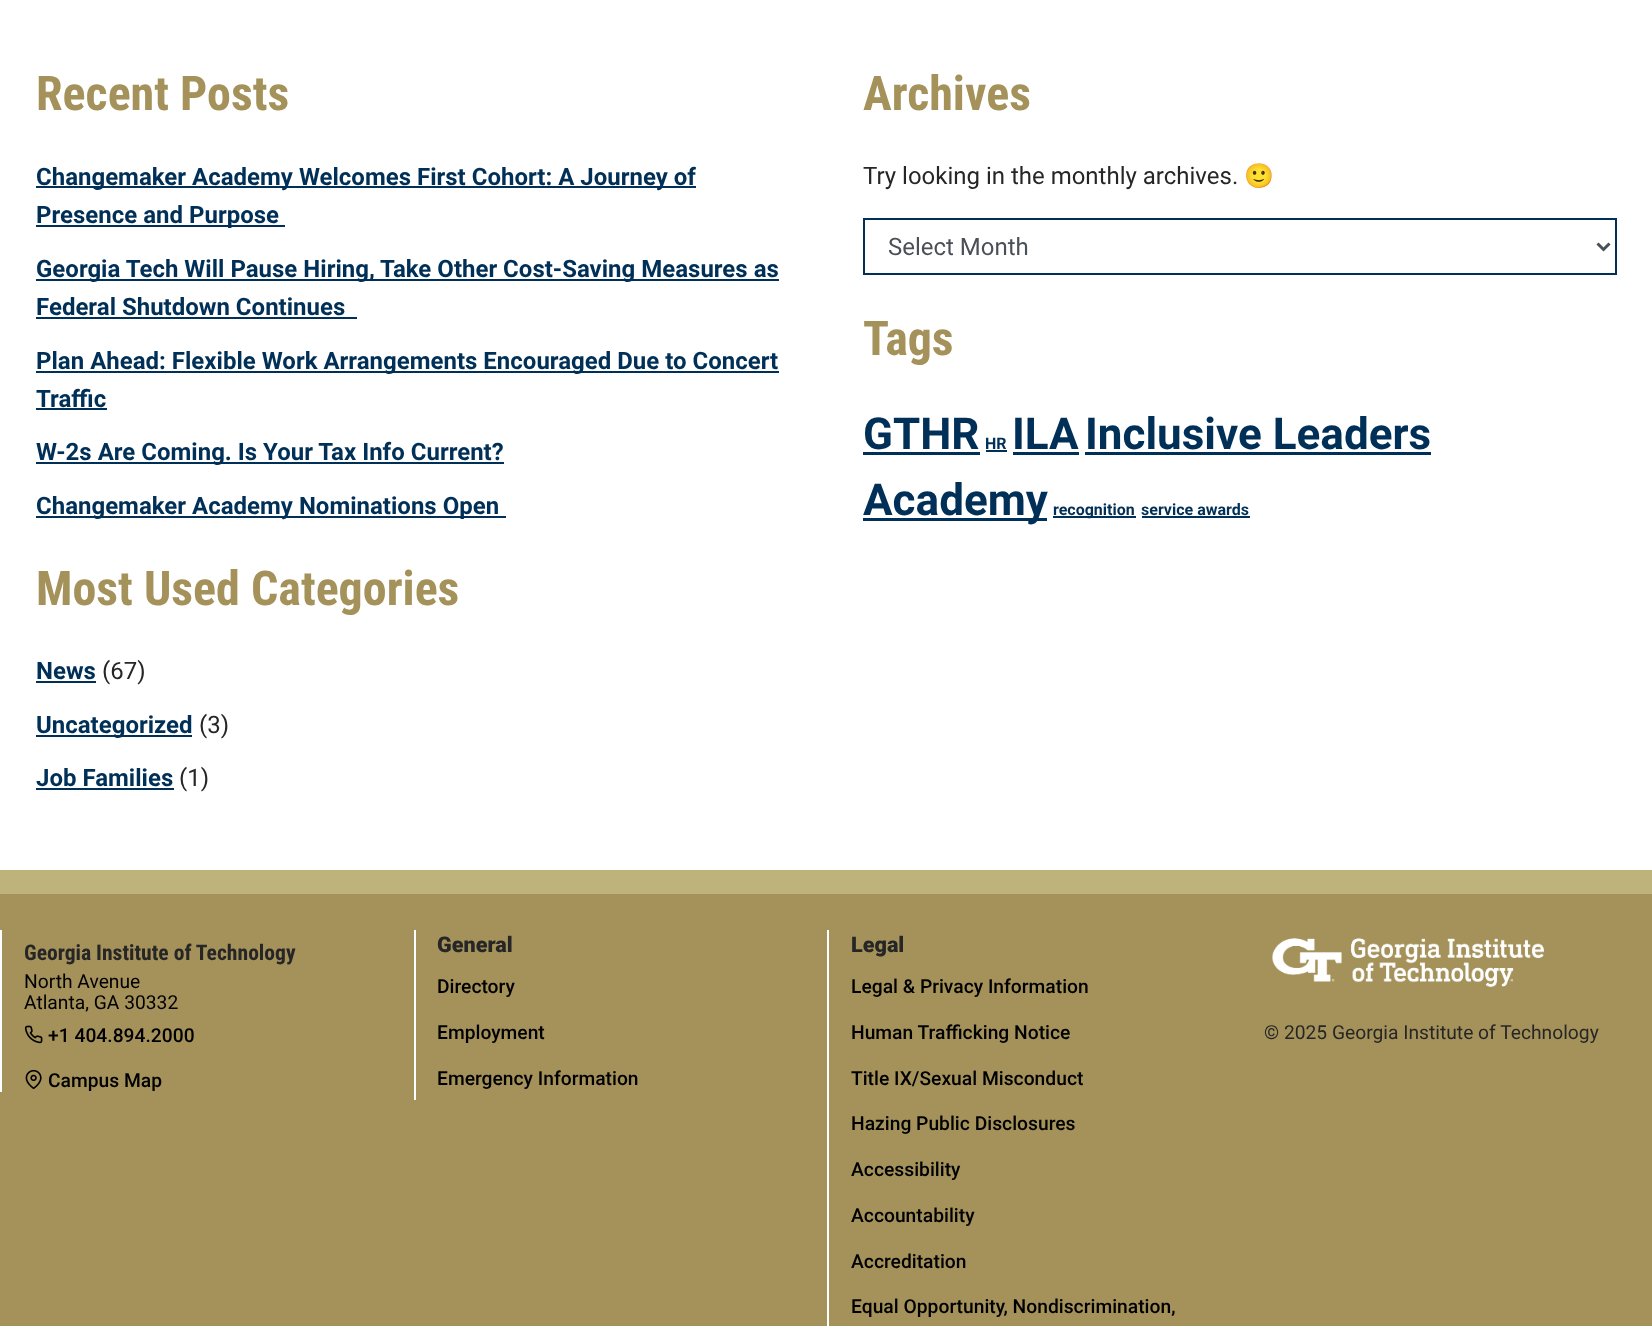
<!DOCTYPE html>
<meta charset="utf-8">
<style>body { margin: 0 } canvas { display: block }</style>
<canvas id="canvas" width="1652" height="1326"></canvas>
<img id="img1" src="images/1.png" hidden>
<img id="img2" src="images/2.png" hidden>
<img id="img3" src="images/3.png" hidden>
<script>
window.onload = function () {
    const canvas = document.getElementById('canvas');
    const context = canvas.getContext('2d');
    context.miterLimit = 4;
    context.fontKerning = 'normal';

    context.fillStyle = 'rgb(255, 255, 255)';
    context.fillRect(0, 0, 1652, 1326);
    context.fillStyle = 'rgb(0, 48, 87)';
    context.fillRect(36, 186, 660, 2);
    context.fillRect(36, 225, 249, 2);
    context.fillRect(36, 279, 743, 2);
    context.fillRect(36, 317, 321, 2);
    context.fillRect(36, 371, 743, 2);
    context.fillRect(36, 408, 71, 2);
    context.fillRect(36, 462, 468, 2);
    context.fillRect(36, 516, 470, 2);
    context.fillRect(36, 681, 60, 2);
    context.fillRect(36, 735, 156, 2);
    context.fillRect(36, 788, 138, 2);
    context.strokeStyle = 'rgb(0, 48, 87)';
    context.lineWidth = 2;
    context.strokeRect(864, 219, 752, 55);
    context.beginPath();
    context.moveTo(1597.5, 243.5);
    context.lineTo(1603.5, 249.5);
    context.lineTo(1609.5, 243.5);
    context.strokeStyle = 'rgb(73, 80, 87)';
    context.lineWidth = 3;
    context.stroke();
    context.fillRect(863, 452, 117, 3);
    context.fillRect(986, 450, 21, 2);
    context.fillRect(1013, 452, 66, 3);
    context.fillRect(1085, 452, 346, 3);
    context.fillRect(863, 518, 184, 3);
    context.fillRect(1053, 516, 83, 2);
    context.fillRect(1142, 516, 108, 2);
    context.fillStyle = 'rgb(164, 146, 90)';
    context.fillRect(0, 894, 1652, 432);
    context.fillStyle = 'rgb(191, 179, 124)';
    context.fillRect(0, 870, 1652, 24);
    context.fillStyle = 'rgb(255, 255, 255)';
    context.fillRect(0, 930, 2, 162);
    context.drawImage(document.getElementById('img1'), 24, 1025, 19, 19);
    context.drawImage(document.getElementById('img2'), 25, 1069, 17, 21);
    context.fillRect(414, 930, 2, 170);
    context.fillRect(827, 930, 2, 396);
    context.drawImage(document.getElementById('img3'), 1272, 938, 272, 49);
    context.font = 'bold 48px Roboto Condensed';
    context.fillStyle = 'rgb(164, 146, 90)';
    context.fillText('Recent Posts', 36, 110);
    context.font = 'bold 24px Roboto';
    context.fillStyle = 'rgb(0, 48, 87)';
    context.fillText('Changemaker Academy Welcomes First Cohort: A Journey of', 36, 185);
    context.fillText('Presence and Purpose', 36, 223);
    context.fillText('Georgia Tech Will Pause Hiring, Take Other Cost-Saving Measures as', 36, 277);
    context.fillText('Federal Shutdown Continues', 36, 315);
    context.fillText('Plan Ahead: Flexible Work Arrangements Encouraged Due to Concert', 36, 369);
    context.fillText('Traffic', 36, 407);
    context.fillText('W-2s Are Coming. Is Your Tax Info Current?', 36, 460);
    context.fillText('Changemaker Academy Nominations Open', 36, 514);
    context.font = 'bold 48px Roboto Condensed';
    context.fillStyle = 'rgb(164, 146, 90)';
    context.fillText('Most Used Categories', 36, 605);
    context.font = 'bold 24px Roboto';
    context.fillStyle = 'rgb(0, 48, 87)';
    context.fillText('News', 36, 679);
    context.font = '24px Roboto';
    context.fillStyle = 'rgb(38, 38, 38)';
    context.fillText('(67)', 102, 679);
    context.font = 'bold 24px Roboto';
    context.fillStyle = 'rgb(0, 48, 87)';
    context.fillText('Uncategorized', 36, 733);
    context.font = '24px Roboto';
    context.fillStyle = 'rgb(38, 38, 38)';
    context.fillText('(3)', 199, 733);
    context.font = 'bold 24px Roboto';
    context.fillStyle = 'rgb(0, 48, 87)';
    context.fillText('Job Families', 36, 786);
    context.font = '24px Roboto';
    context.fillStyle = 'rgb(38, 38, 38)';
    context.fillText('(1)', 179, 786);
    context.font = 'bold 48px Roboto Condensed';
    context.fillStyle = 'rgb(164, 146, 90)';
    context.fillText('Archives', 863, 110);
    context.font = '24px Roboto';
    context.fillStyle = 'rgb(38, 38, 38)';
    context.fillText('Try looking in the monthly archives.', 863, 184);
    context.font = '24px Noto Color Emoji';
    context.fillText('🙂', 1244, 184);
    context.font = '24px Roboto';
    context.fillStyle = 'rgb(73, 80, 87)';
    context.fillText('Select Month', 888, 255);
    context.font = 'bold 48px Roboto Condensed';
    context.fillStyle = 'rgb(164, 146, 90)';
    context.fillText('Tags', 863, 355);
    context.font = 'bold 44px Roboto';
    context.fillStyle = 'rgb(0, 48, 87)';
    context.fillText('GTHR', 863, 449);
    context.font = 'bold 16px Roboto';
    context.fillText('HR', 985, 449);
    context.font = 'bold 44px Roboto';
    context.fillText('ILA', 1012, 449);
    context.fillText('Inclusive Leaders', 1085, 449);
    context.fillText('Academy', 863, 515);
    context.font = 'bold 16px Roboto';
    context.fillText('recognition', 1053, 515);
    context.fillText('service awards', 1141, 515);
    context.font = 'bold 21.6px Roboto Condensed';
    context.fillStyle = 'rgb(38, 38, 38)';
    context.fillText('Georgia Institute of Technology', 24, 960);
    context.font = '19.25px Roboto';
    context.fillStyle = 'rgb(0, 0, 0)';
    context.fillText('North Avenue', 24, 988);
    context.fillText('Atlanta, GA 30332', 24, 1009);
    context.font = '500 19.25px Roboto';
    context.fillText('+1 404.894.2000', 48, 1042);
    context.fillText('Campus Map', 48, 1087);
    context.font = '900 21.6px Roboto';
    context.fillStyle = 'rgb(38, 38, 38)';
    context.fillText('General', 437, 952);
    context.font = '500 19.25px Roboto';
    context.fillStyle = 'rgb(0, 0, 0)';
    context.fillText('Directory', 437, 993);
    context.fillText('Employment', 437, 1039);
    context.fillText('Emergency Information', 437, 1085);
    context.font = '900 21.6px Roboto';
    context.fillStyle = 'rgb(38, 38, 38)';
    context.fillText('Legal', 851, 952);
    context.font = '500 19.25px Roboto';
    context.fillStyle = 'rgb(0, 0, 0)';
    context.fillText('Legal & Privacy Information', 851, 993);
    context.fillText('Human Trafficking Notice', 851, 1039);
    context.fillText('Title IX/Sexual Misconduct', 851, 1085);
    context.fillText('Hazing Public Disclosures', 851, 1130);
    context.fillText('Accessibility', 851, 1176);
    context.fillText('Accountability', 851, 1222);
    context.fillText('Accreditation', 851, 1268);
    context.fillText('Equal Opportunity, Nondiscrimination,', 851, 1313);
    context.font = '19.25px Roboto';
    context.fillStyle = 'rgb(38, 38, 38)';
    context.fillText('© 2025 Georgia Institute of Technology', 1264, 1039);
};
</script>
